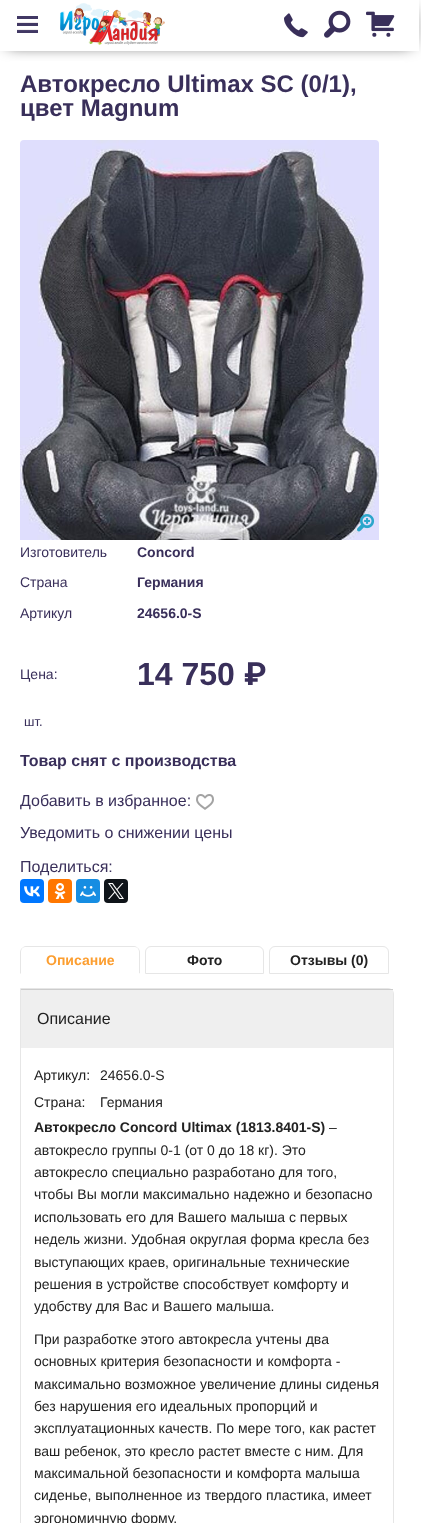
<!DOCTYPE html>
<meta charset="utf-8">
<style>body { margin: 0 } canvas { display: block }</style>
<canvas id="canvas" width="421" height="1523"></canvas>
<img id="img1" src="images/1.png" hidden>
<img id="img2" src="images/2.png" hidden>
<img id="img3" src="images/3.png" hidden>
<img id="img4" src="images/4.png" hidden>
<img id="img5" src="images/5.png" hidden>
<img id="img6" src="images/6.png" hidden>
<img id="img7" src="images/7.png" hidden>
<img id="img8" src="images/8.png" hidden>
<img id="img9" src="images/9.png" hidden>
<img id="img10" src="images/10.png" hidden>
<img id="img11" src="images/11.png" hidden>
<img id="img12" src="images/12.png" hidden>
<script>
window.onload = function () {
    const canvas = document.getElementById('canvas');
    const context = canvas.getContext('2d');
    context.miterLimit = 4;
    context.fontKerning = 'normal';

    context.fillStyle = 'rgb(255, 255, 255)';
    context.fillRect(0, 0, 421, 1523);
    context.save();
    context.beginPath();
    context.moveTo(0, 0);
    context.lineTo(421, 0);
    context.lineTo(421, 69);
    context.lineTo(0, 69);
    context.closePath();
    context.moveTo(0, 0);
    context.lineTo(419, 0);
    context.lineTo(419, 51);
    context.lineTo(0, 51);
    context.closePath();
    context.clip('evenodd');
    context.fillStyle = 'rgb(0, 0, 0)';
    context.filter = 'blur(8px)';
    context.beginPath();
    context.rect(8, 9, 403, 35);
    context.fill();
    context.filter = 'none';
    context.restore();
    context.drawImage(document.getElementById('img1'), 17, 16, 21, 17);
    context.drawImage(document.getElementById('img2'), 60, 3, 105, 42);
    context.drawImage(document.getElementById('img3'), 284, 13, 24, 25);
    context.drawImage(document.getElementById('img4'), 324, 10, 27, 28);
    context.drawImage(document.getElementById('img5'), 366, 11, 29, 26);
    context.beginPath();
    context.roundRect(8, 61, 398, 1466, 4);
    context.fill();
    context.drawImage(document.getElementById('img6'), 20, 140, 359, 400);
    context.drawImage(document.getElementById('img7'), 357, 514, 18, 18);
    context.drawImage(document.getElementById('img8'), 196, 794, 18, 16);
    context.fillStyle = 'rgb(0, 119, 255)';
    context.beginPath();
    context.roundRect(20, 879, 24, 24, 4);
    context.fill();
    context.drawImage(document.getElementById('img9'), 24, 886, 16, 11);
    context.fillStyle = 'rgb(255, 119, 0)';
    context.beginPath();
    context.roundRect(48, 879, 24, 24, 4);
    context.fill();
    context.drawImage(document.getElementById('img10'), 54, 883, 12, 16);
    context.fillStyle = 'rgb(22, 141, 226)';
    context.beginPath();
    context.roundRect(76, 879, 24, 24, 4);
    context.fill();
    context.drawImage(document.getElementById('img11'), 80, 886, 16, 11);
    context.fillStyle = 'rgb(15, 20, 25)';
    context.beginPath();
    context.roundRect(104, 879, 24, 24, 4);
    context.fill();
    context.drawImage(document.getElementById('img12'), 108, 883, 16, 16);
    context.fillStyle = 'rgb(230, 230, 230)';
    context.beginPath();
    context.moveTo(26, 946);
    context.bezierCurveTo(24, 946, 23, 947, 22, 948);
    context.lineTo(25, 947);
    context.lineTo(135, 947);
    context.lineTo(138, 948);
    context.bezierCurveTo(137, 947, 136, 946, 134, 946);
    context.closePath();
    context.fill();
    context.beginPath();
    context.moveTo(140, 974);
    context.lineTo(140, 952);
    context.bezierCurveTo(140, 950.5, 139, 949, 138, 948);
    context.lineTo(137.5, 948.5);
    context.bezierCurveTo(138.5, 949, 139, 950.5, 139, 952);
    context.lineTo(139, 973);
    context.closePath();
    context.fill();
    context.fillStyle = 'rgb(255, 255, 255)';
    context.beginPath();
    context.moveTo(140, 974);
    context.lineTo(139, 973);
    context.lineTo(21, 973);
    context.lineTo(20, 974);
    context.closePath();
    context.fill();
    context.fillStyle = 'rgb(230, 230, 230)';
    context.beginPath();
    context.moveTo(20, 974);
    context.lineTo(21, 973);
    context.lineTo(21, 952);
    context.bezierCurveTo(21, 950.5, 21.5, 949, 22.5, 948.5);
    context.lineTo(22, 948);
    context.bezierCurveTo(21, 949, 20, 950.5, 20, 952);
    context.closePath();
    context.fill();
    context.beginPath();
    context.roundRect(145.5, 946.5, 118, 27, [5.5, 5.5, 0, 0]);
    context.strokeStyle = 'rgb(230, 230, 230)';
    context.stroke();
    context.beginPath();
    context.roundRect(269.5, 946.5, 119, 27, [5.5, 5.5, 0, 0]);
    context.stroke();
    context.beginPath();
    context.moveTo(20.5, 988.5);
    context.lineTo(388, 988.5);
    context.bezierCurveTo(391, 988.5, 393.5, 991, 393.5, 994);
    context.lineTo(393.5, 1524);
    context.bezierCurveTo(393.5, 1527, 391, 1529.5, 388, 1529.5);
    context.lineTo(26, 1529.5);
    context.bezierCurveTo(23, 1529.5, 20.5, 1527, 20.5, 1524);
    context.closePath();
    context.stroke();
    context.fillStyle = 'rgb(239, 239, 239)';
    context.fillRect(21, 990, 372, 58);
    context.fillStyle = 'rgb(204, 204, 204)';
    context.fillRect(21, 989, 372, 1);
    context.font = 'bold 24px Liberation Sans';
    context.fillStyle = 'rgb(57, 47, 90)';
    context.fillText('Автокресло Ultimax SC (0/1),', 20, 92);
    context.fillText('цвет Magnum', 20, 116);
    context.font = '14px Liberation Sans';
    context.fillText('Изготовитель', 20, 557);
    context.font = 'bold 14px Liberation Sans';
    context.fillText('Concord', 137, 557);
    context.font = '14px Liberation Sans';
    context.fillText('Страна', 20, 587);
    context.font = 'bold 14px Liberation Sans';
    context.fillText('Германия', 137, 587);
    context.font = '14px Liberation Sans';
    context.fillText('Артикул', 20, 618);
    context.font = 'bold 14px Liberation Sans';
    context.fillText('24656.0-S', 137, 618);
    context.font = '14px Liberation Sans';
    context.fillText('Цена:', 20, 679);
    context.font = 'bold 32px Liberation Sans';
    context.fillText('14 750', 137, 685);
    context.font = 'bold 32px Roboto';
    context.fillText('₽', 244, 685);
    context.font = '13px Liberation Sans';
    context.fillText('шт.', 24, 726);
    context.font = 'bold 16px Liberation Sans';
    context.fillText('Товар снят с производства', 20, 766);
    context.font = '16px Liberation Sans';
    context.fillText('Добавить в избранное:', 20, 806);
    context.fillText('Уведомить о снижении цены', 20, 838);
    context.fillText('Поделиться:', 20, 872);
    context.font = 'bold 14px Liberation Sans';
    context.fillStyle = 'rgb(252, 158, 48)';
    context.fillText('Описание', 46, 965);
    context.fillStyle = 'rgb(34, 34, 34)';
    context.fillText('Фото', 187, 965);
    context.fillText('Отзывы (0)', 290, 965);
    context.font = '16px Liberation Sans';
    context.fillText('Описание', 37, 1024);
    context.font = '14px Liberation Sans';
    context.fillText('Артикул:', 34, 1080);
    context.fillText('24656.0-S', 100, 1080);
    context.fillText('Страна:', 34, 1107);
    context.fillText('Германия', 100, 1107);
    context.font = 'bold 14px Liberation Sans';
    context.fillText('Автокресло Concord Ultimax (1813.8401-S)', 34, 1132);
    context.font = '14px Liberation Sans';
    context.fillText('–', 329, 1132);
    context.fillText('автокресло группы 0-1 (от 0 до 18 кг). Это', 34, 1155);
    context.fillText('автокресло специально разработано для того,', 34, 1177);
    context.fillText('чтобы Вы могли максимально надежно и безопасно', 34, 1199);
    context.fillText('использовать его для Вашего малыша с первых', 34, 1222);
    context.fillText('недель жизни. Удобная округлая форма кресла без', 34, 1244);
    context.fillText('выступающих краев, оригинальные технические', 34, 1267);
    context.fillText('решения в устройстве способствует комфорту и', 34, 1289);
    context.fillText('удобству для Вас и Вашего малыша.', 34, 1311);
    context.fillText('При разработке этого автокресла учтены два', 34, 1344);
    context.fillText('основных критерия безопасности и комфорта -', 34, 1366);
    context.fillText('максимально возможное увеличение длины сиденья', 34, 1389);
    context.fillText('без нарушения его идеальных пропорций и', 34, 1411);
    context.fillText('эксплуатационных качеств. По мере того, как растет', 34, 1433);
    context.fillText('ваш ребенок, это кресло растет вместе с ним. Для', 34, 1456);
    context.fillText('максимальной безопасности и комфорта малыша', 34, 1478);
    context.fillText('сиденье, выполненное из твердого пластика, имеет', 34, 1500);
    context.fillText('эргономичную форму.', 34, 1523);
};
</script>
